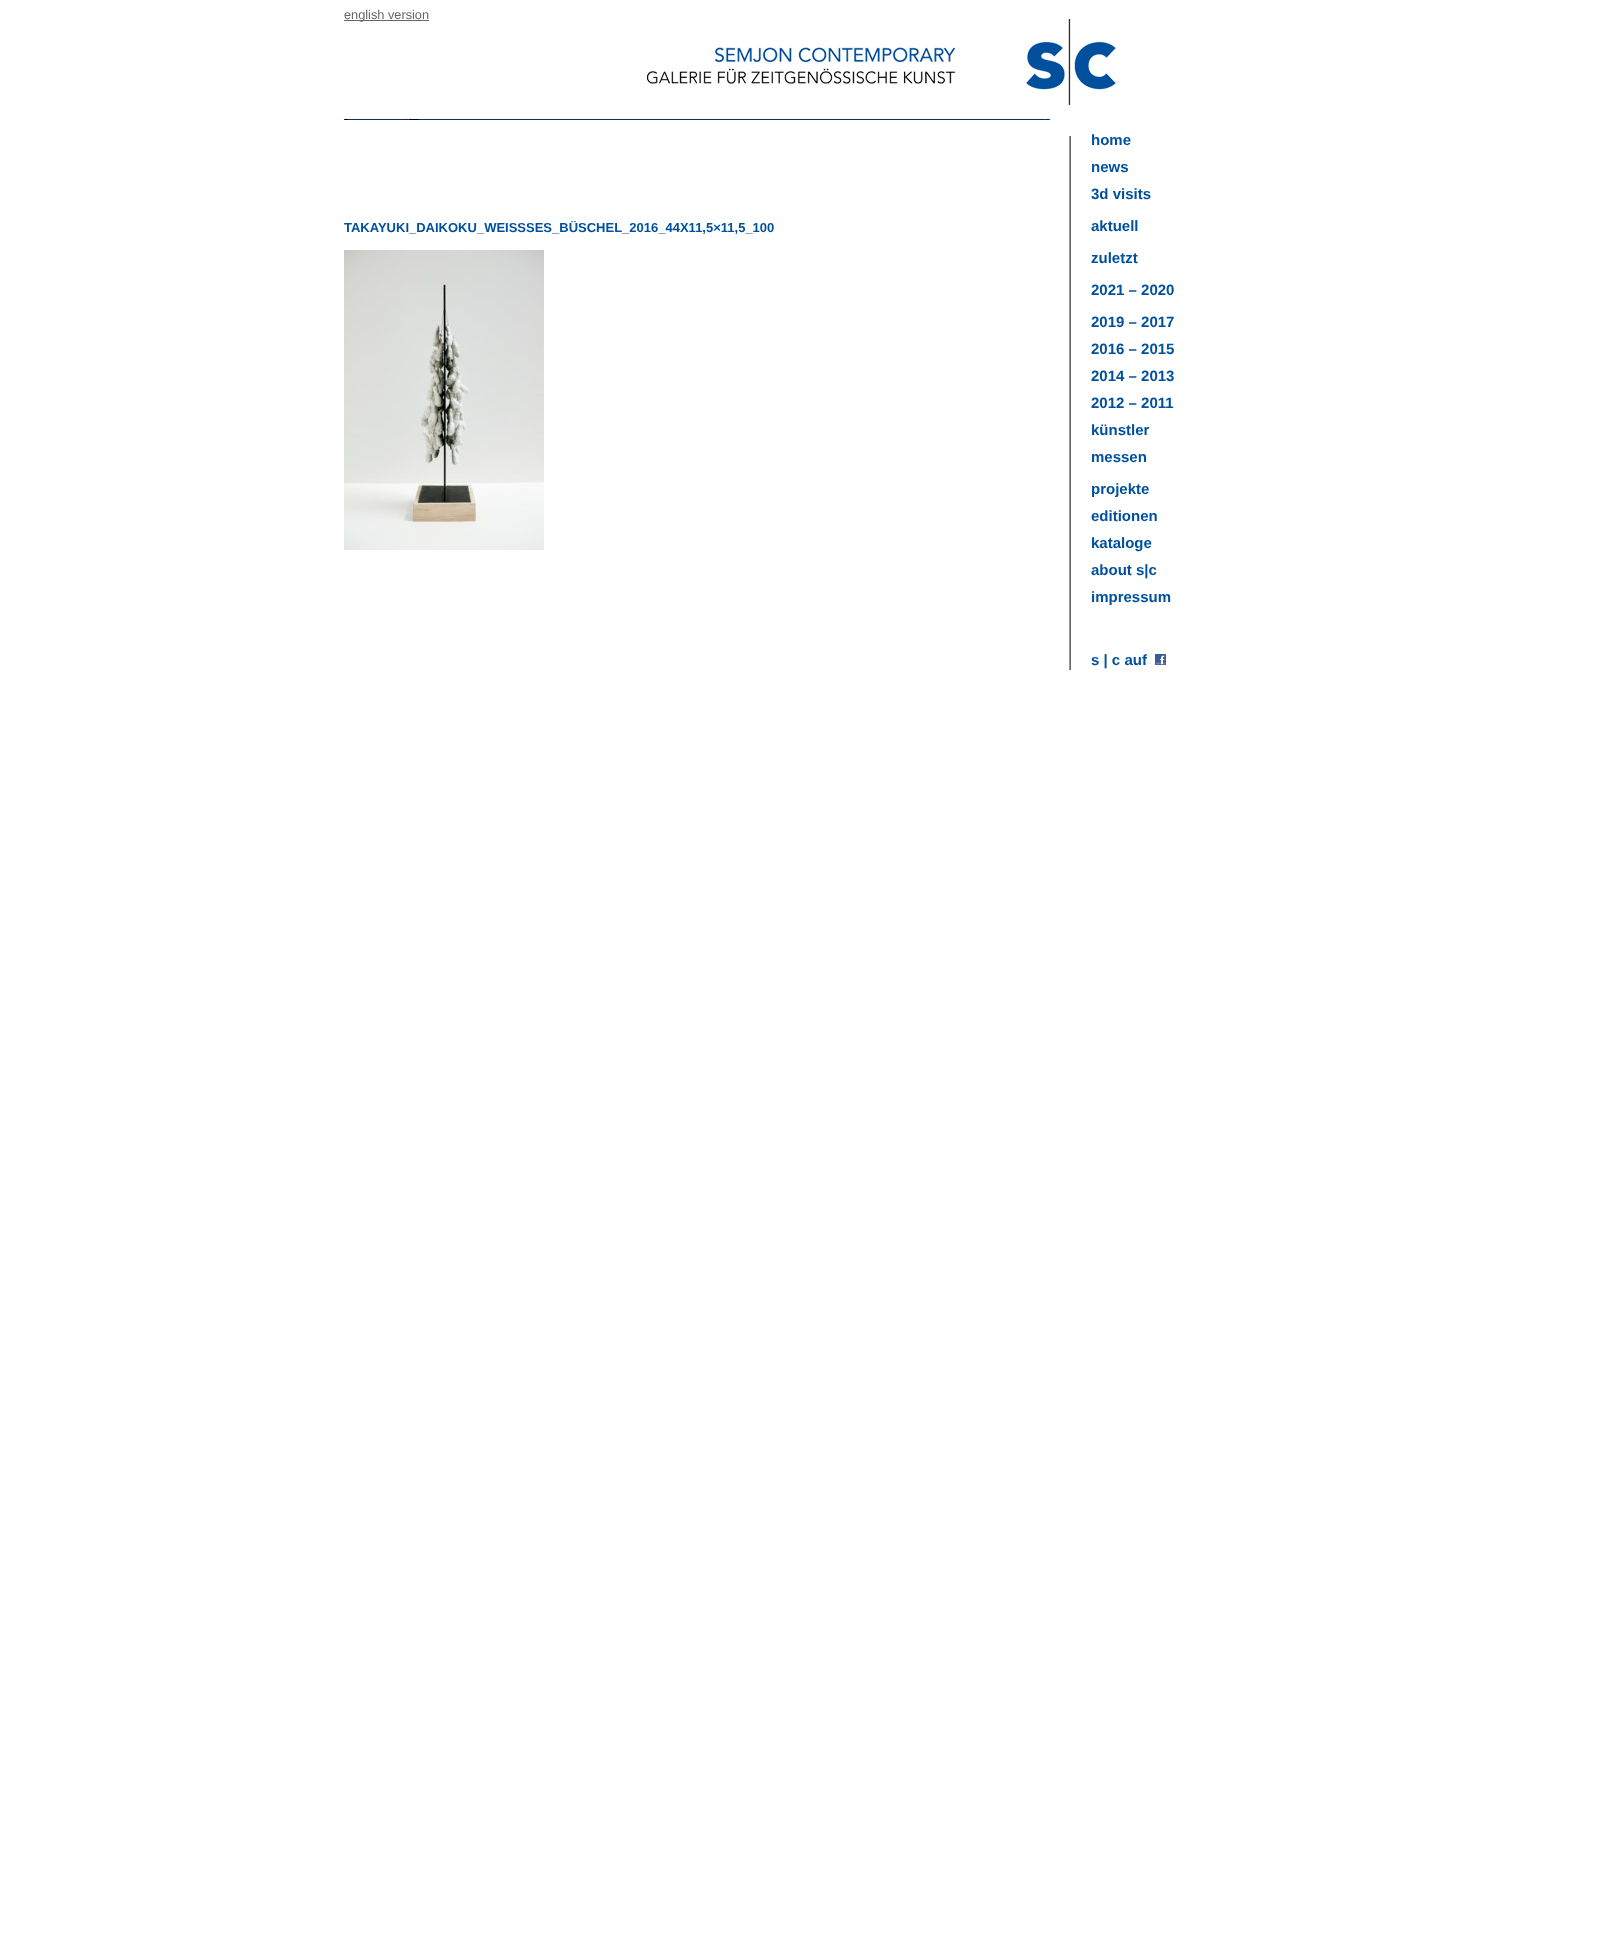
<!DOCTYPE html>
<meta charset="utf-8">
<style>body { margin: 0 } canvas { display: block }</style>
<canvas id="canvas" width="1597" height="1960"></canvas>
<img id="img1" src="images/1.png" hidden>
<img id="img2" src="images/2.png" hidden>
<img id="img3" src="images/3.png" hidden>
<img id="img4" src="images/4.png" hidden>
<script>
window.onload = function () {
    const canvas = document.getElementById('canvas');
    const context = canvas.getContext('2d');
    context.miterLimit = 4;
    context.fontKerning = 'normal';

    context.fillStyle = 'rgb(255, 255, 255)';
    context.fillRect(0, 0, 1597, 1960);
    context.drawImage(document.getElementById('img1'), 340, 19, 776, 101);
    context.fillStyle = 'rgb(102, 102, 102)';
    context.fillRect(344, 20, 85, 1);
    context.drawImage(document.getElementById('img2'), 344, 250, 200, 300);
    context.drawImage(document.getElementById('img3'), 1069, 136, 2, 534);
    context.drawImage(document.getElementById('img4'), 1155, 654, 11, 11);
    context.font = '12.75px Liberation Sans';
    context.fillText('english version', 344, 19);
    context.font = 'bold 13px Liberation Sans';
    context.fillStyle = 'rgb(0, 80, 158)';
    context.fillText('TAKAYUKI_DAIKOKU_WEISSSES_BÜSCHEL_2016_44X11,5×11,5_100', 344, 232);
    context.font = 'bold 15px Liberation Sans';
    context.fillText('home', 1091, 145);
    context.fillText('news', 1091, 172);
    context.fillText('3d visits', 1091, 199);
    context.fillText('aktuell', 1091, 231);
    context.fillText('zuletzt', 1091, 263);
    context.fillText('2021 – 2020', 1091, 295);
    context.fillText('2019 – 2017', 1091, 327);
    context.fillText('2016 – 2015', 1091, 354);
    context.fillText('2014 – 2013', 1091, 381);
    context.fillText('2012 – 2011', 1091, 408);
    context.fillText('künstler', 1091, 435);
    context.fillText('messen', 1091, 462);
    context.fillText('projekte', 1091, 494);
    context.fillText('editionen', 1091, 521);
    context.fillText('kataloge', 1091, 548);
    context.fillText('about s|c', 1091, 575);
    context.fillText('impressum', 1091, 602);
    context.fillText('s | c auf', 1091, 665);
};
</script>
